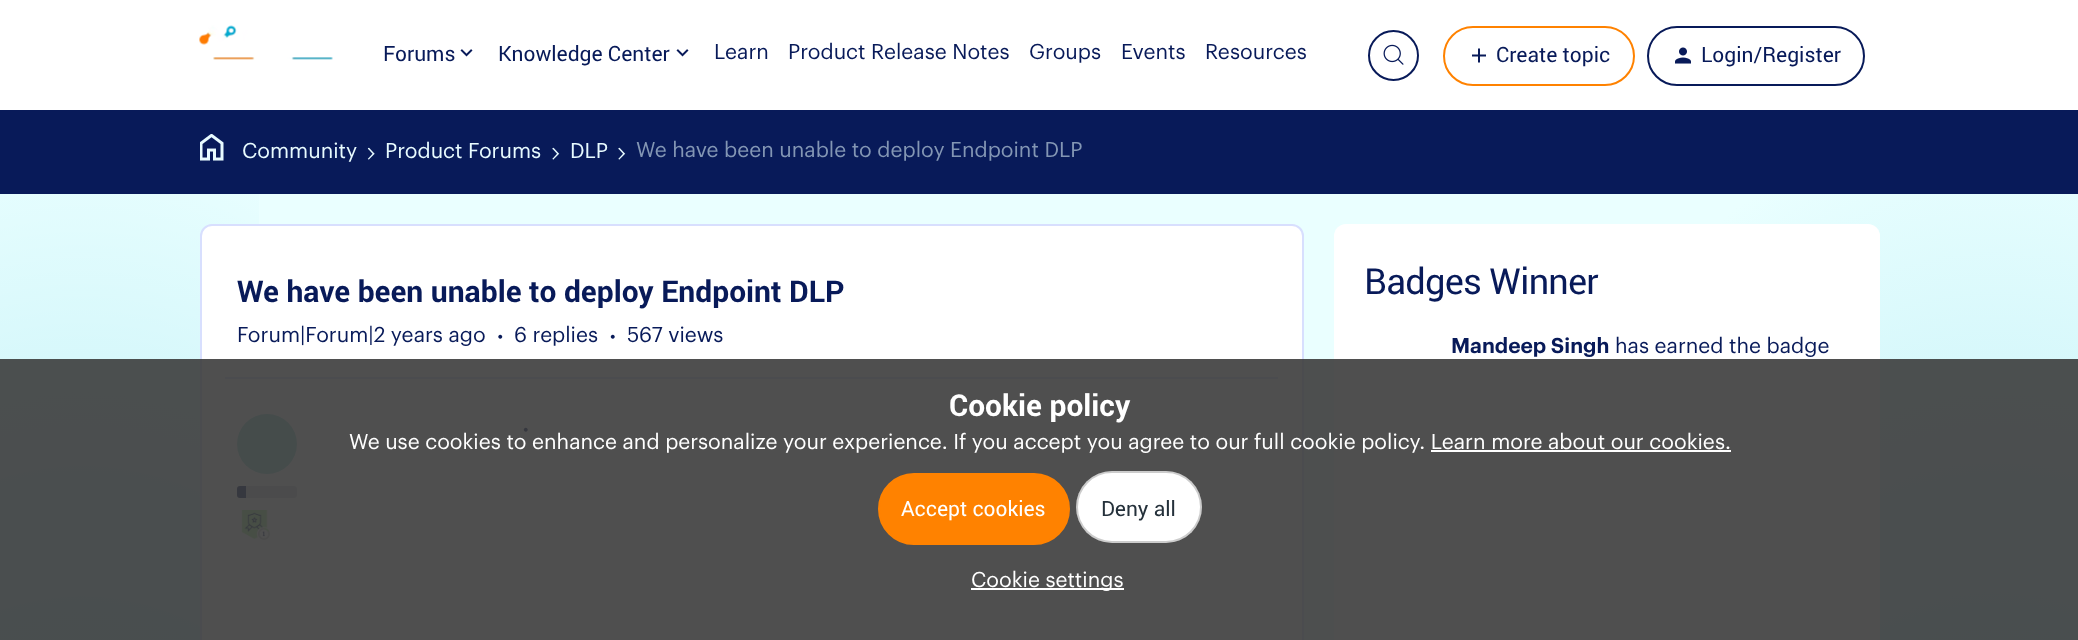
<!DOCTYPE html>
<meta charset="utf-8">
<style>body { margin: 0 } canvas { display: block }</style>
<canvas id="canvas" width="2078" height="640"></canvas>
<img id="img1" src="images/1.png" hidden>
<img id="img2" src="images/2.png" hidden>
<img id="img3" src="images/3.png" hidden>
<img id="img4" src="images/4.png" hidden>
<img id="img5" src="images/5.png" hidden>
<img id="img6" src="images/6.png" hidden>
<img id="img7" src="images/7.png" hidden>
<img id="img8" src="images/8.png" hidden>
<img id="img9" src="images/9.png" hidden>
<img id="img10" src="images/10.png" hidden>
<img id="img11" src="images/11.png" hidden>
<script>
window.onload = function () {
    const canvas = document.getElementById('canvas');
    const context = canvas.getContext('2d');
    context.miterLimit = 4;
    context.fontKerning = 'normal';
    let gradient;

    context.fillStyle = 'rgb(255, 255, 255)';
    context.fillRect(0, 0, 2078, 640);
    gradient = context.createRadialGradient(1997, 784.74, 0, 1997, 784.74, 733);
    gradient.addColorStop(0, 'rgb(117, 212, 231)');
    gradient.addColorStop(1, 'rgb(234, 255, 255)');
    context.fillStyle = gradient;
    context.beginPath();
    context.rect(0, 194, 2078, 446);
    context.save();
    context.clip();
    context.scale(1, 1530 / 733);
    context.fillRect(0, 0, 2078, 307);
    context.restore();
    gradient = context.createRadialGradient(82, 784.74, 0, 82, 784.74, 733);
    gradient.addColorStop(0, 'rgba(0, 169, 206, 0.5)');
    gradient.addColorStop(1, 'rgba(0, 169, 206, 0)');
    context.fillStyle = gradient;
    context.beginPath();
    context.rect(0, 194, 259, 446);
    context.save();
    context.clip();
    context.scale(1, 1530 / 733);
    context.fillRect(0, 0, 2078, 307);
    context.restore();
    context.drawImage(document.getElementById('img1'), 199, 25, 134, 35);
    context.drawImage(document.getElementById('img2'), 460, 49, 13, 8);
    context.drawImage(document.getElementById('img2'), 676, 49, 13, 8);
    context.beginPath();
    context.arc(1393.5, 55.5, 24.5, 0, 2 * Math.PI);
    context.strokeStyle = 'rgb(8, 26, 89)';
    context.lineWidth = 2;
    context.stroke();
    context.drawImage(document.getElementById('img3'), 1383, 44, 21, 21);
    context.beginPath();
    context.roundRect(1444, 27, 190, 58, 29);
    context.strokeStyle = 'rgb(255, 130, 0)';
    context.stroke();
    context.drawImage(document.getElementById('img4'), 1472, 48, 14, 15);
    context.beginPath();
    context.roundRect(1648, 27, 216, 58, 29);
    context.strokeStyle = 'rgb(8, 26, 89)';
    context.stroke();
    context.drawImage(document.getElementById('img5'), 1675, 47, 16, 17);
    context.fillStyle = 'rgb(8, 26, 89)';
    context.fillRect(0, 110, 2078, 84);
    context.drawImage(document.getElementById('img6'), 200, 134, 24, 27);
    context.drawImage(document.getElementById('img7'), 367, 147, 8, 13);
    context.drawImage(document.getElementById('img8'), 552, 147, 8, 13);
    context.drawImage(document.getElementById('img8'), 618, 147, 8, 13);
    context.fillStyle = 'rgb(255, 255, 255)';
    context.beginPath();
    context.roundRect(201, 225, 1102, 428, 11);
    context.fill();
    context.strokeStyle = 'rgb(216, 223, 254)';
    context.stroke();
    context.drawImage(document.getElementById('img9'), 498, 334, 5, 5);
    context.drawImage(document.getElementById('img10'), 610, 334, 5, 5);
    context.fillStyle = 'rgb(216, 223, 254)';
    context.fillRect(225, 377, 1053, 2);
    context.fillStyle = 'rgb(154, 219, 213)';
    context.beginPath();
    context.arc(267, 444, 30, 0, 2 * Math.PI);
    context.fill();
    context.fillStyle = 'rgb(213, 215, 219)';
    context.beginPath();
    context.roundRect(237, 486, 60, 12, 3);
    context.fill();
    context.fillStyle = 'rgb(8, 26, 89)';
    context.beginPath();
    context.roundRect(237, 486, 9, 12, [3, 0, 0, 3]);
    context.fill();
    context.drawImage(document.getElementById('img11'), 241, 510, 29, 30);
    context.drawImage(document.getElementById('img10'), 523, 427, 5, 5);
    context.fillStyle = 'rgb(255, 255, 255)';
    context.beginPath();
    context.roundRect(1334, 224, 546, 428, 12);
    context.fill();
    context.fillStyle = 'rgba(60, 60, 60, 0.9)';
    context.fillRect(0, 359, 2078, 281);
    context.fillStyle = 'rgb(255, 255, 255)';
    context.fillRect(1431, 450, 300, 2);
    context.fillStyle = 'rgb(255, 130, 0)';
    context.beginPath();
    context.roundRect(879, 474, 190, 70, 35);
    context.fill();
    context.strokeStyle = 'rgb(255, 130, 0)';
    context.stroke();
    context.fillStyle = 'rgb(255, 255, 255)';
    context.beginPath();
    context.roundRect(1076, 471, 126, 72, 36);
    context.fill();
    context.beginPath();
    context.roundRect(1077, 472, 124, 70, 35);
    context.strokeStyle = 'rgba(0, 0, 0, 0.2)';
    context.stroke();
    context.fillRect(971, 588, 153, 2);
    context.font = '21px Roboto';
    context.fillStyle = 'rgb(8, 26, 89)';
    context.fillText('Forums', 383, 61);
    context.fillText('Knowledge Center', 498, 61);
    context.font = '21px Graphik';
    context.fillText('Learn', 714, 59);
    context.fillText('Product Release Notes', 788, 59);
    context.fillText('Groups', 1029, 59);
    context.fillText('Events', 1121, 59);
    context.fillText('Resources', 1205, 59);
    context.font = '21px Roboto';
    context.fillText('Create topic', 1496, 62);
    context.fillText('Login/Register', 1701, 62);
    context.font = '21px Graphik';
    context.fillStyle = 'rgb(232, 251, 255)';
    context.fillText('Community', 242, 158);
    context.fillText('Product Forums', 385, 158);
    context.fillText('DLP', 570, 158);
    context.fillStyle = 'rgb(131, 150, 180)';
    context.fillText('We have been unable to deploy Endpoint DLP', 636, 157);
    context.font = 'bold 30px Roboto';
    context.fillStyle = 'rgb(8, 26, 89)';
    context.fillText('We have been unable to deploy Endpoint DLP', 237, 302);
    context.font = '21px Graphik';
    context.fillText('Forum|Forum|2 years ago', 237, 342);
    context.fillText('6 replies', 514, 342);
    context.fillText('567 views', 627, 342);
    context.letterSpacing = '-0.75px';
    context.font = '36px Roboto';
    context.fillText('Badges Winner', 1364, 294);
    context.letterSpacing = '0px';
    context.font = '600 21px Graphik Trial';
    context.fillText('Mandeep Singh', 1451, 353);
    context.font = '21px Graphik';
    context.fillText('has earned the badge', 1615, 353);
    context.font = 'bold 30px Roboto';
    context.fillStyle = 'rgb(255, 255, 255)';
    context.fillText('Cookie policy', 949, 416);
    context.font = '21px Graphik';
    context.fillText('We use cookies to enhance and personalize your experience. If you accept you agree to our full cookie policy. Learn more about our cookies.', 349, 449);
    context.font = '21px Roboto';
    context.fillText('Accept cookies', 901, 516);
    context.fillStyle = 'rgb(37, 49, 59)';
    context.fillText('Deny all', 1101, 516);
    context.font = '21px Graphik';
    context.fillStyle = 'rgb(255, 255, 255)';
    context.fillText('Cookie settings', 971, 587);
};
</script>
